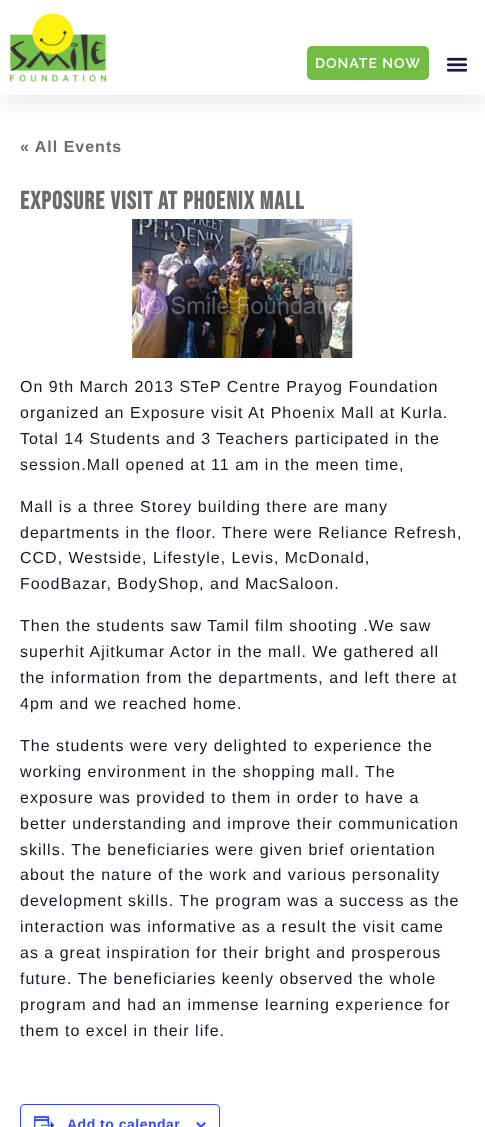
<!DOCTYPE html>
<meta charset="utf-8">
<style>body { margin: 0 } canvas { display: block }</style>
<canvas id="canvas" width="485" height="1127"></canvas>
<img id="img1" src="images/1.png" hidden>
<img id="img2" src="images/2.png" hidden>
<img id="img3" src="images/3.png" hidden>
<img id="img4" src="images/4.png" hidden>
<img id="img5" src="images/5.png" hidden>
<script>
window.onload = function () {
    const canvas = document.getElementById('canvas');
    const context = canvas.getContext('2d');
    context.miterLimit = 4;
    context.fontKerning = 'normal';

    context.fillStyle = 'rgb(255, 255, 255)';
    context.fillRect(0, 0, 485, 1127);
    context.save();
    context.beginPath();
    context.rect(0, 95, 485, 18);
    context.clip();
    context.fillStyle = 'rgba(0, 0, 0, 0.1)';
    context.filter = 'blur(15px)';
    context.beginPath();
    context.rect(0, 5, 485, 95);
    context.fill();
    context.filter = 'none';
    context.restore();
    context.drawImage(document.getElementById('img1'), 10, 13, 97, 69);
    context.fillStyle = 'rgb(114, 190, 68)';
    context.beginPath();
    context.roundRect(307, 46, 122, 34, 5);
    context.fill();
    context.drawImage(document.getElementById('img2'), 446, 57, 22, 15);
    context.drawImage(document.getElementById('img3'), 130, 219, 224, 139);
    context.beginPath();
    context.roundRect(20.5, 1104.5, 199, 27, 3.5);
    context.strokeStyle = 'rgb(51, 74, 255)';
    context.stroke();
    context.drawImage(document.getElementById('img4'), 34, 1116, 21, 11);
    context.drawImage(document.getElementById('img5'), 196, 1122, 10, 5);
    context.letterSpacing = '1px';
    context.font = '600 14px Raleway';
    context.fillStyle = 'rgb(255, 255, 255)';
    context.fillText('DONATE NOW', 315, 68);
    context.font = 'bold 16px Liberation Sans';
    context.fillStyle = 'rgb(106, 107, 106)';
    context.fillText('« All Events', 20, 152);
    context.font = 'bold 25px Bebas Neue';
    context.fillText('Exposure Visit at Phoenix Mall', 20, 209);
    context.font = '16px Liberation Sans';
    context.fillStyle = 'rgb(20, 24, 39)';
    context.fillText('On 9th March 2013 STeP Centre Prayog Foundation', 20, 392);
    context.fillText('organized an Exposure visit At Phoenix Mall at Kurla.', 20, 418);
    context.fillText('Total 14 Students and 3 Teachers participated in the', 20, 444);
    context.fillText('session.Mall opened at 11 am in the meen time,', 20, 470);
    context.fillText('Mall is a three Storey building there are many', 20, 512);
    context.fillText('departments in the floor. There were Reliance Refresh,', 20, 538);
    context.fillText('CCD, Westside, Lifestyle, Levis, McDonald,', 20, 563);
    context.fillText('FoodBazar, BodyShop, and MacSaloon.', 20, 589);
    context.fillText('Then the students saw Tamil film shooting .We saw', 20, 631);
    context.fillText('superhit Ajitkumar Actor in the mall. We gathered all', 20, 657);
    context.fillText('the information from the departments, and left there at', 20, 683);
    context.fillText('4pm and we reached home.', 20, 709);
    context.fillText('The students were very delighted to experience the', 20, 751);
    context.fillText('working environment in the shopping mall. The', 20, 777);
    context.fillText('exposure was provided to them in order to have a', 20, 803);
    context.fillText('better understanding and improve their communication', 20, 829);
    context.fillText('skills. The beneficiaries were given brief orientation', 20, 855);
    context.fillText('about the nature of the work and various personality', 20, 880);
    context.fillText('development skills. The program was a success as the', 20, 906);
    context.fillText('interaction was informative as a result the visit came', 20, 932);
    context.fillText('as a great inspiration for their bright and prosperous', 20, 958);
    context.fillText('future. The beneficiaries keenly observed the whole', 20, 984);
    context.fillText('program and had an immense learning experience for', 20, 1010);
    context.fillText('them to excel in their life.', 20, 1036);
    context.letterSpacing = '0.5px';
    context.font = 'bold 14px Liberation Sans';
    context.fillStyle = 'rgb(51, 74, 255)';
    context.fillText('Add to calendar', 67, 1129);
};
</script>
